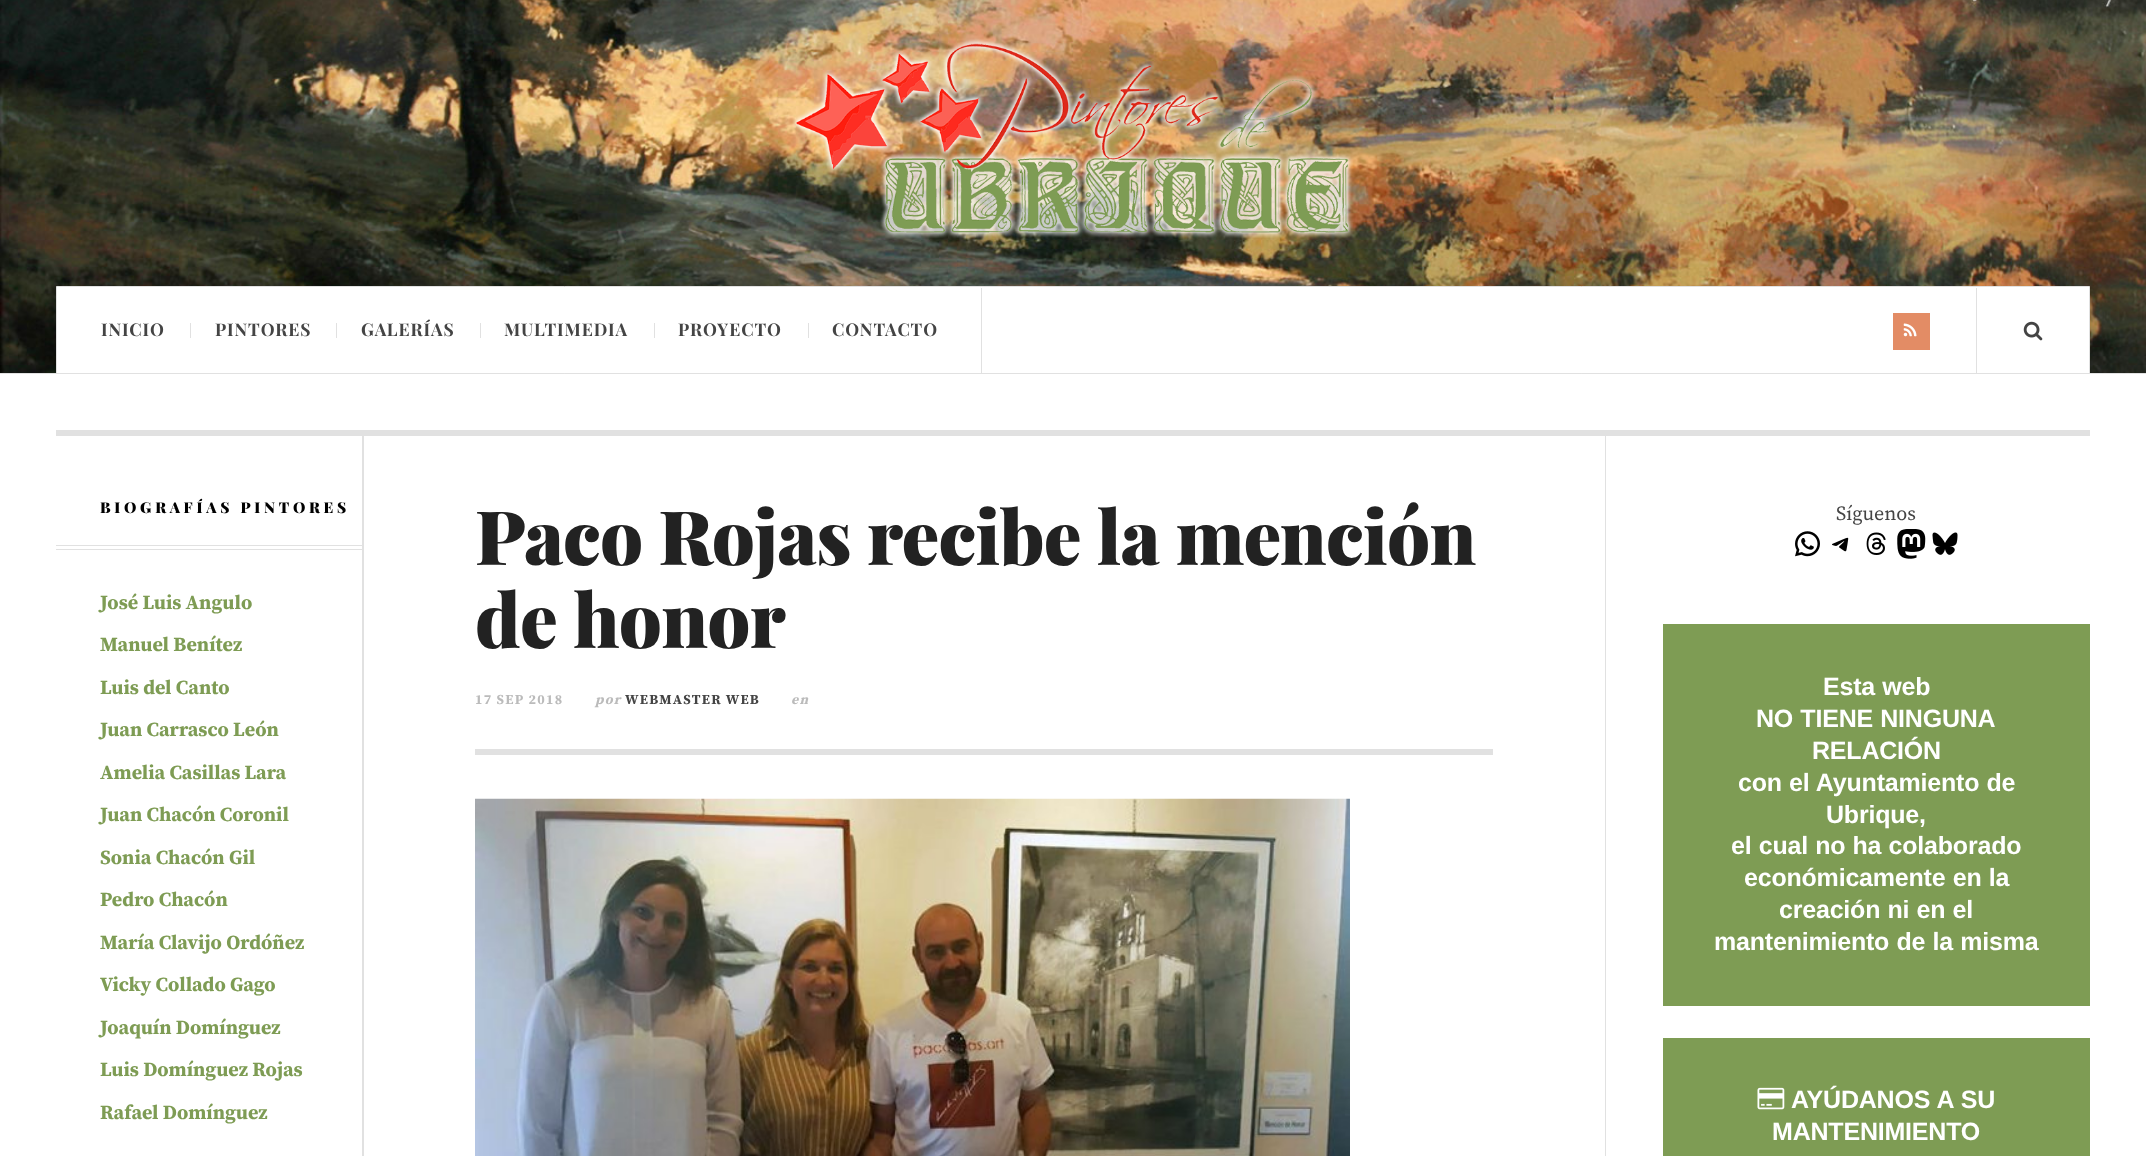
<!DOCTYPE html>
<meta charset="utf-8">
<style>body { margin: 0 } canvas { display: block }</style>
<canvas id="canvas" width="2146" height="1156"></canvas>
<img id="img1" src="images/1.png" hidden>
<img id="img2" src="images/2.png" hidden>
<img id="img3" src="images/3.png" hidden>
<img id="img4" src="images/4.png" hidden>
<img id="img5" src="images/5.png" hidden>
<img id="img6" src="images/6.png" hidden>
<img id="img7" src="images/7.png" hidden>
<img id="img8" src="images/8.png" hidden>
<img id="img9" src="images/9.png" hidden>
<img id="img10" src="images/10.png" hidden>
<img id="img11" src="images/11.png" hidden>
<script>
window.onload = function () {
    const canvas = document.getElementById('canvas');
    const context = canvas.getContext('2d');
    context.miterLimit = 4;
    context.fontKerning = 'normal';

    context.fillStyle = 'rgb(255, 255, 255)';
    context.fillRect(0, 0, 2146, 1156);
    context.drawImage(document.getElementById('img1'), 0, 0, 2146, 373);
    context.fillStyle = 'rgb(225, 225, 225)';
    context.fillRect(0, 373, 2146, 1);
    context.drawImage(document.getElementById('img2'), 792, 38, 561, 200);
    context.fillStyle = 'rgb(255, 255, 255)';
    context.beginPath();
    context.rect(56.5, 286.5, 2033, 87);
    context.fill();
    context.strokeStyle = 'rgb(225, 225, 225)';
    context.stroke();
    context.fillStyle = 'rgb(225, 225, 225)';
    context.fillRect(981, 288, 1, 85);
    context.fillRect(190, 323, 1, 15);
    context.fillRect(336, 323, 1, 15);
    context.fillRect(480, 323, 1, 15);
    context.fillRect(654, 323, 1, 15);
    context.fillRect(808, 323, 1, 15);
    context.fillStyle = 'rgb(227, 140, 101)';
    context.fillRect(1893, 313, 37, 37);
    context.drawImage(document.getElementById('img3'), 1903, 323, 14, 14);
    context.fillStyle = 'rgb(225, 225, 225)';
    context.fillRect(1976, 288, 1, 85);
    context.drawImage(document.getElementById('img4'), 2023, 321, 20, 20);
    context.fillRect(56, 430, 2034, 6);
    context.beginPath();
    context.moveTo(58, 436);
    context.lineTo(362, 436);
    context.lineTo(362, 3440);
    context.lineTo(364, 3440);
    context.lineTo(364, 436);
    context.closePath();
    context.fill();
    context.fillRect(56, 545, 307, 1);
    context.fillRect(56, 549, 307, 1);
    context.fillRect(1605, 436, 1, 720);
    context.fillRect(475, 749, 1018, 6);
    context.drawImage(document.getElementById('img5'), 475, 798, 875, 358);
    context.drawImage(document.getElementById('img6'), 1795, 531, 25, 26);
    context.drawImage(document.getElementById('img7'), 1832, 537, 17, 15);
    context.drawImage(document.getElementById('img8'), 1866, 532, 20, 23);
    context.drawImage(document.getElementById('img9'), 1897, 529, 29, 30);
    context.drawImage(document.getElementById('img10'), 1932, 532, 26, 23);
    context.fillStyle = 'rgb(126, 156, 84)';
    context.fillRect(1663, 624, 427, 382);
    context.fillRect(1663, 1038, 427, 118);
    context.drawImage(document.getElementById('img11'), 1757, 1087, 28, 23);
    context.letterSpacing = '0.9px';
    context.font = 'bold 17.5px Playfair Display';
    context.fillStyle = 'rgb(68, 68, 68)';
    context.fillText('INICIO', 101, 336);
    context.fillText('PINTORES', 215, 336);
    context.fillText('GALERÍAS', 361, 336);
    context.fillText('MULTIMEDIA', 504, 336);
    context.fillText('PROYECTO', 678, 336);
    context.fillText('CONTACTO', 832, 336);
    context.letterSpacing = '3.75px';
    context.font = '900 15px Playfair Display';
    context.fillStyle = 'rgb(0, 0, 0)';
    context.fillText('BIOGRAFÍAS PINTORES', 100, 513);
    context.letterSpacing = '0px';
    context.font = 'bold 20px Source Serif Pro';
    context.fillStyle = 'rgb(126, 156, 84)';
    context.fillText('José Luis Angulo', 100, 609);
    context.fillText('Manuel Benítez', 100, 651);
    context.fillText('Luis del Canto', 100, 694);
    context.fillText('Juan Carrasco León', 100, 736);
    context.fillText('Amelia Casillas Lara', 100, 779);
    context.fillText('Juan Chacón Coronil', 100, 821);
    context.fillText('Sonia Chacón Gil', 100, 864);
    context.fillText('Pedro Chacón', 100, 906);
    context.fillText('María Clavijo Ordóñez', 100, 949);
    context.fillText('Vicky Collado Gago', 100, 991);
    context.fillText('Joaquín Domínguez', 100, 1034);
    context.fillText('Luis Domínguez Rojas', 100, 1076);
    context.fillText('Rafael Domínguez', 100, 1119);
    context.letterSpacing = '-0.75px';
    context.font = '900 75px Playfair Display';
    context.fillStyle = 'rgb(34, 34, 34)';
    context.fillText('Paco Rojas recibe la mención', 475, 565);
    context.fillText('de honor', 475, 648);
    context.letterSpacing = '1.25px';
    context.font = 'bold 13.75px Source Serif Pro';
    context.fillStyle = 'rgb(187, 187, 187)';
    context.fillText('17 SEP 2018', 475, 704);
    context.font = 'italic bold 13.75px Source Serif Pro';
    context.fillText('por', 595, 704);
    context.font = 'bold 13.75px Source Serif Pro';
    context.fillStyle = 'rgb(68, 68, 68)';
    context.fillText('WEBMASTER WEB', 625, 704);
    context.font = 'italic bold 13.75px Source Serif Pro';
    context.fillStyle = 'rgb(187, 187, 187)';
    context.fillText('en', 791, 704);
    context.letterSpacing = '0px';
    context.font = '20px Source Serif Pro';
    context.fillStyle = 'rgb(68, 68, 68)';
    context.fillText('Síguenos', 1836, 520);
    context.letterSpacing = '-0.2px';
    context.wordSpacing = '0.5px';
    context.font = 'bold 25px Liberation Sans';
    context.fillStyle = 'rgb(255, 255, 255)';
    context.fillText('Esta web', 1823, 695);
    context.fillText('NO TIENE NINGUNA', 1756, 727);
    context.wordSpacing = '0px';
    context.fillText('RELACIÓN', 1812, 759);
    context.wordSpacing = '0.5px';
    context.fillText('con el Ayuntamiento de', 1738, 791);
    context.wordSpacing = '0px';
    context.fillText('Ubrique,', 1826, 823);
    context.wordSpacing = '0.5px';
    context.fillText('el cual no ha colaborado', 1731, 854);
    context.fillText('económicamente en la', 1744, 886);
    context.fillText('creación ni en el', 1779, 918);
    context.fillText('mantenimiento de la misma', 1714, 950);
    context.fillText('AYÚDANOS A SU', 1791, 1108);
    context.wordSpacing = '0px';
    context.fillText('MANTENIMIENTO', 1772, 1140);
};
</script>
